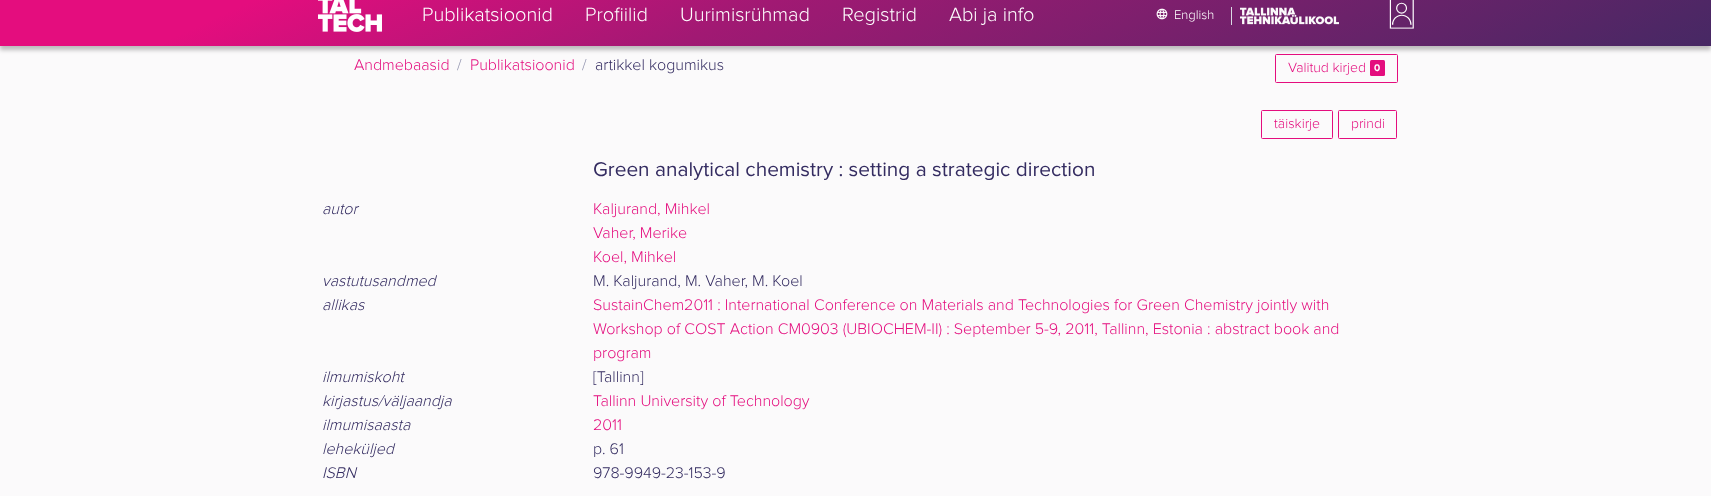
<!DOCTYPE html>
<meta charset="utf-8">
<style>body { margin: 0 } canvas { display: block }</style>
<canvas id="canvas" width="1711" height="496"></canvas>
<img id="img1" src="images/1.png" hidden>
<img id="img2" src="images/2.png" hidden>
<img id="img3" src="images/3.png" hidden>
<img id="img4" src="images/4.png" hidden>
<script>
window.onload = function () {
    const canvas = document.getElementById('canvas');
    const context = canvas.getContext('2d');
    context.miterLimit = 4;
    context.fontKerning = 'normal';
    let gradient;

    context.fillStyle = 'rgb(251, 250, 251)';
    context.fillRect(0, 0, 1711, 496);
    context.fillStyle = 'rgba(0, 0, 0, 0.25)';
    context.filter = 'blur(2px)';
    context.beginPath();
    context.rect(0, -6, 1711, 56);
    context.fill();
    context.filter = 'none';
    gradient = context.createLinearGradient(690, -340, 1063, 460);
    gradient.addColorStop(0.14, 'rgb(228, 13, 126)');
    gradient.addColorStop(0.39, 'rgb(161, 25, 115)');
    gradient.addColorStop(0.84, 'rgb(78, 39, 101)');
    gradient.addColorStop(1, 'rgb(52, 44, 97)');
    context.fillStyle = gradient;
    context.fillRect(0, 0, 1711, 46);
    context.drawImage(document.getElementById('img1'), 318, 0, 64, 32);
    context.drawImage(document.getElementById('img2'), 1156, 8, 12, 12);
    context.fillStyle = 'rgb(218, 218, 228)';
    context.fillRect(1231, 7, 1, 18);
    context.drawImage(document.getElementById('img3'), 1240, 7, 99, 18);
    context.drawImage(document.getElementById('img4'), 1389, 0, 25, 29);
    context.beginPath();
    context.roundRect(1275.5, 54.5, 122, 28, 1);
    context.strokeStyle = 'rgb(228, 13, 126)';
    context.stroke();
    context.fillStyle = 'rgb(228, 13, 126)';
    context.beginPath();
    context.roundRect(1370, 60, 15, 16, 1.5);
    context.fill();
    context.beginPath();
    context.roundRect(1261.5, 110.5, 71, 28, 1);
    context.stroke();
    context.beginPath();
    context.roundRect(1338.5, 110.5, 58, 28, 1);
    context.stroke();
    context.font = '300 20px Proxima Nova';
    context.fillStyle = 'rgb(255, 255, 255)';
    context.fillText('Publikatsioonid', 422, 21);
    context.fillText('Profiilid', 585, 21);
    context.fillText('Uurimisrühmad', 680, 21);
    context.fillText('Registrid', 842, 21);
    context.fillText('Abi ja info', 949, 21);
    context.font = '300 13px Proxima Nova';
    context.fillText('English', 1174, 19);
    context.font = '300 16px Proxima Nova';
    context.fillStyle = 'rgb(228, 13, 126)';
    context.fillText('Andmebaasid', 354, 70);
    context.fillStyle = 'rgb(144, 146, 173)';
    context.fillText('/', 457, 70);
    context.fillStyle = 'rgb(228, 13, 126)';
    context.fillText('Publikatsioonid', 470, 70);
    context.fillStyle = 'rgb(144, 146, 173)';
    context.fillText('/', 582, 70);
    context.fillStyle = 'rgb(52, 44, 97)';
    context.fillText('artikkel kogumikus', 595, 70);
    context.font = '300 14px Proxima Nova';
    context.fillStyle = 'rgb(228, 13, 126)';
    context.fillText('Valitud kirjed', 1288, 72);
    context.font = 'bold 10px Proxima Nova';
    context.fillStyle = 'rgb(255, 255, 255)';
    context.fillText('0', 1374, 71);
    context.font = '300 14px Proxima Nova';
    context.fillStyle = 'rgb(228, 13, 126)';
    context.fillText('täiskirje', 1274, 128);
    context.fillText('prindi', 1351, 128);
    context.font = '20.8px Proxima Nova';
    context.fillStyle = 'rgb(52, 44, 97)';
    context.fillText('Green analytical chemistry : setting a strategic direction', 593, 176);
    context.font = 'italic 300 16px Proxima Nova';
    context.fillText('autor', 322, 214);
    context.font = '300 16px Proxima Nova';
    context.fillStyle = 'rgb(228, 13, 126)';
    context.fillText('Kaljurand, Mihkel', 593, 214);
    context.fillText('Vaher, Merike', 593, 238);
    context.fillText('Koel, Mihkel', 593, 262);
    context.font = 'italic 300 16px Proxima Nova';
    context.fillStyle = 'rgb(52, 44, 97)';
    context.fillText('vastutusandmed', 322, 286);
    context.font = '300 16px Proxima Nova';
    context.fillText('M. Kaljurand, M. Vaher, M. Koel', 593, 286);
    context.font = 'italic 300 16px Proxima Nova';
    context.fillText('allikas', 322, 310);
    context.font = '300 16px Proxima Nova';
    context.fillStyle = 'rgb(228, 13, 126)';
    context.fillText('SustainChem2011 : International Conference on Materials and Technologies for Green Chemistry jointly with', 593, 310);
    context.fillText('Workshop of COST Action CM0903 (UBIOCHEM-II) : September 5-9, 2011, Tallinn, Estonia : abstract book and', 593, 334);
    context.fillText('program', 593, 358);
    context.font = 'italic 300 16px Proxima Nova';
    context.fillStyle = 'rgb(52, 44, 97)';
    context.fillText('ilmumiskoht', 322, 382);
    context.font = '300 16px Proxima Nova';
    context.fillText('[Tallinn]', 593, 382);
    context.font = 'italic 300 16px Proxima Nova';
    context.fillText('kirjastus/väljaandja', 322, 406);
    context.font = '300 16px Proxima Nova';
    context.fillStyle = 'rgb(228, 13, 126)';
    context.fillText('Tallinn University of Technology', 593, 406);
    context.font = 'italic 300 16px Proxima Nova';
    context.fillStyle = 'rgb(52, 44, 97)';
    context.fillText('ilmumisaasta', 322, 430);
    context.font = '300 16px Proxima Nova';
    context.fillStyle = 'rgb(228, 13, 126)';
    context.fillText('2011', 593, 430);
    context.font = 'italic 300 16px Proxima Nova';
    context.fillStyle = 'rgb(52, 44, 97)';
    context.fillText('leheküljed', 322, 454);
    context.font = '300 16px Proxima Nova';
    context.fillText('p. 61', 593, 454);
    context.font = 'italic 300 16px Proxima Nova';
    context.fillText('ISBN', 322, 478);
    context.font = '300 16px Proxima Nova';
    context.fillText('978-9949-23-153-9', 593, 478);
};
</script>
